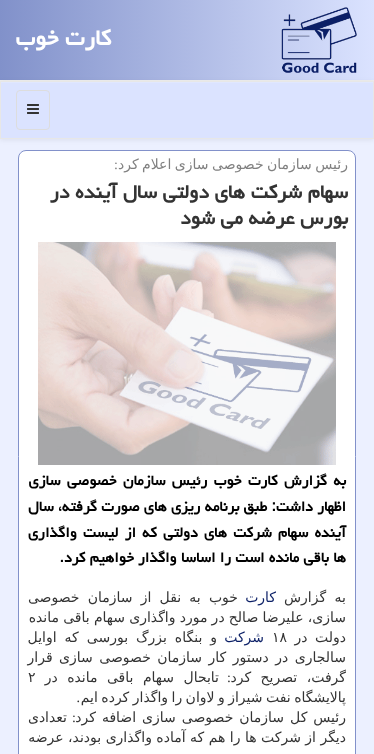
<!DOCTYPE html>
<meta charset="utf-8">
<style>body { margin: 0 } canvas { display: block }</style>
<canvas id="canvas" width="374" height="754"></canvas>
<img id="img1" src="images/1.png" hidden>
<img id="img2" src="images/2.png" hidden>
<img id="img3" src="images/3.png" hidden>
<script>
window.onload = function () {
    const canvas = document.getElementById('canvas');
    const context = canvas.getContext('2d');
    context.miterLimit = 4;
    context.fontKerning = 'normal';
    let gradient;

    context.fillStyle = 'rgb(236, 240, 255)';
    context.fillRect(0, 0, 374, 754);
    gradient = context.createLinearGradient(0, 40, 374, 40);
    gradient.addColorStop(0, 'rgb(129, 145, 202)');
    gradient.addColorStop(1, 'rgb(219, 227, 255)');
    context.fillStyle = gradient;
    context.fillRect(0, 0, 374, 80);
    context.fillStyle = 'rgb(238, 238, 238)';
    context.fillRect(0, 80, 374, 1);
    context.drawImage(document.getElementById('img1'), 281, 7, 76, 66);
    context.fillStyle = 'rgba(0, 0, 0, 0.07)';
    context.filter = 'blur(2.5px)';
    context.beginPath();
    context.rect(0, 82, 374, 58);
    context.fill();
    context.filter = 'none';
    context.fillStyle = 'rgb(219, 227, 255)';
    context.fillRect(1, 83, 372, 55);
    context.fillStyle = 'rgb(224, 231, 255)';
    context.fillRect(1, 82, 372, 1);
    context.strokeStyle = 'rgb(231, 231, 231)';
    context.strokeRect(0.5, 81.5, 373, 57);
    context.beginPath();
    context.roundRect(16.5, 90.5, 33, 39, 3.5);
    context.strokeStyle = 'rgb(221, 221, 221)';
    context.stroke();
    context.drawImage(document.getElementById('img2'), 27, 104, 12, 10);
    context.fillStyle = 'rgb(255, 255, 255)';
    context.beginPath();
    context.roundRect(18.5, 150.5, 337, 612, 7.5);
    context.fill();
    context.strokeStyle = 'rgb(130, 145, 202)';
    context.stroke();
    context.drawImage(document.getElementById('img3'), 38, 242, 298, 223);
    context.direction = 'rtl';
    context.font = 'bold 28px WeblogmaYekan';
    context.fillText('كارت خوب', 111, 45);
    context.wordSpacing = '-1px';
    context.font = '14px DejaVu Sans';
    context.fillStyle = 'rgb(128, 128, 128)';
    context.fillText('رئیس سازمان خصوصی سازی اعلام كرد', 348, 169);
    context.wordSpacing = '0px';
    context.font = '14px Liberation Serif';
    context.fillText(':', 118, 169);
    context.font = 'bold 24px WeblogmaYekan';
    context.fillStyle = 'rgb(51, 51, 51)';
    context.fillText('سهام شركت های دولتی سال آینده در', 348, 198);
    context.fillText('بورس عرضه می شود', 348, 224);
    context.wordSpacing = '2.25px';
    context.font = 'bold 18px WeblogmaYekan';
    context.fillStyle = 'rgb(0, 0, 0)';
    context.fillText('به گزارش كارت خوب رئیس سازمان خصوصی سازی', 346, 485);
    context.wordSpacing = '0px';
    context.fillText('اظهار داشت: طبق برنامه ریزی های صورت گرفته، سال', 346, 511);
    context.wordSpacing = '2px';
    context.fillText('آینده سهام شركت های دولتی كه از لیست واگذاری', 346, 537);
    context.wordSpacing = '0px';
    context.fillText('ها باقی مانده است را اساسا واگذار خواهیم كرد.', 346, 562);
    context.wordSpacing = '4px';
    context.font = '14px DejaVu Sans';
    context.fillStyle = 'rgb(51, 51, 51)';
    context.fillText('به گزارش', 346, 602);
    context.wordSpacing = '0px';
    context.fillStyle = 'rgb(11, 31, 102)';
    context.fillText('كارت', 276, 602);
    context.wordSpacing = '3.75px';
    context.fillStyle = 'rgb(51, 51, 51)';
    context.fillText('خوب به نقل از سازمان خصوصی', 238, 602);
    context.wordSpacing = '-0.25px';
    context.fillText('سازی، علیرضا صالح در مورد واگذاری سهام باقی مانده', 346, 622);
    context.wordSpacing = '3px';
    context.fillText('دولت در', 346, 642);
    context.wordSpacing = '0px';
    context.direction = 'ltr';
    context.fillText('۱۸', 272, 642);
    context.direction = 'rtl';
    context.fillStyle = 'rgb(11, 31, 102)';
    context.fillText('شركت', 264, 642);
    context.wordSpacing = '3.5px';
    context.fillStyle = 'rgb(51, 51, 51)';
    context.fillText('و بنگاه بزرگ بورسی كه اوایل', 217, 642);
    context.wordSpacing = '2px';
    context.fillText('سالجاری در دستور كار سازمان خصوصی سازی قرار', 346, 662);
    context.wordSpacing = '5px';
    context.fillText('گرفت، تصریح كرد', 346, 682);
    context.wordSpacing = '0px';
    context.font = '14px Liberation Serif';
    context.fillText(':', 231, 682);
    context.wordSpacing = '5px';
    context.font = '14px DejaVu Sans';
    context.fillText('تابحال سهام باقی مانده در', 219, 682);
    context.wordSpacing = '0px';
    context.direction = 'ltr';
    context.fillText('۲', 28, 682);
    context.wordSpacing = '-1px';
    context.direction = 'rtl';
    context.fillText('پالایشگاه نفت شیراز و لاوان را واگذار كرده ایم', 346, 702);
    context.wordSpacing = '0px';
    context.font = '14px Liberation Serif';
    context.fillText('.', 80, 702);
    context.wordSpacing = '1.5px';
    context.font = '14px DejaVu Sans';
    context.fillText('رئیس كل سازمان خصوصی سازی اضافه كرد', 346, 722);
    context.wordSpacing = '0px';
    context.font = '14px Liberation Serif';
    context.fillText(':', 76, 722);
    context.font = '14px DejaVu Sans';
    context.fillText('تعدادی', 67, 722);
    context.fillText('دیگر از شركت ها را هم كه آماده واگذاری بودند، عرضه', 346, 742);
};
</script>
